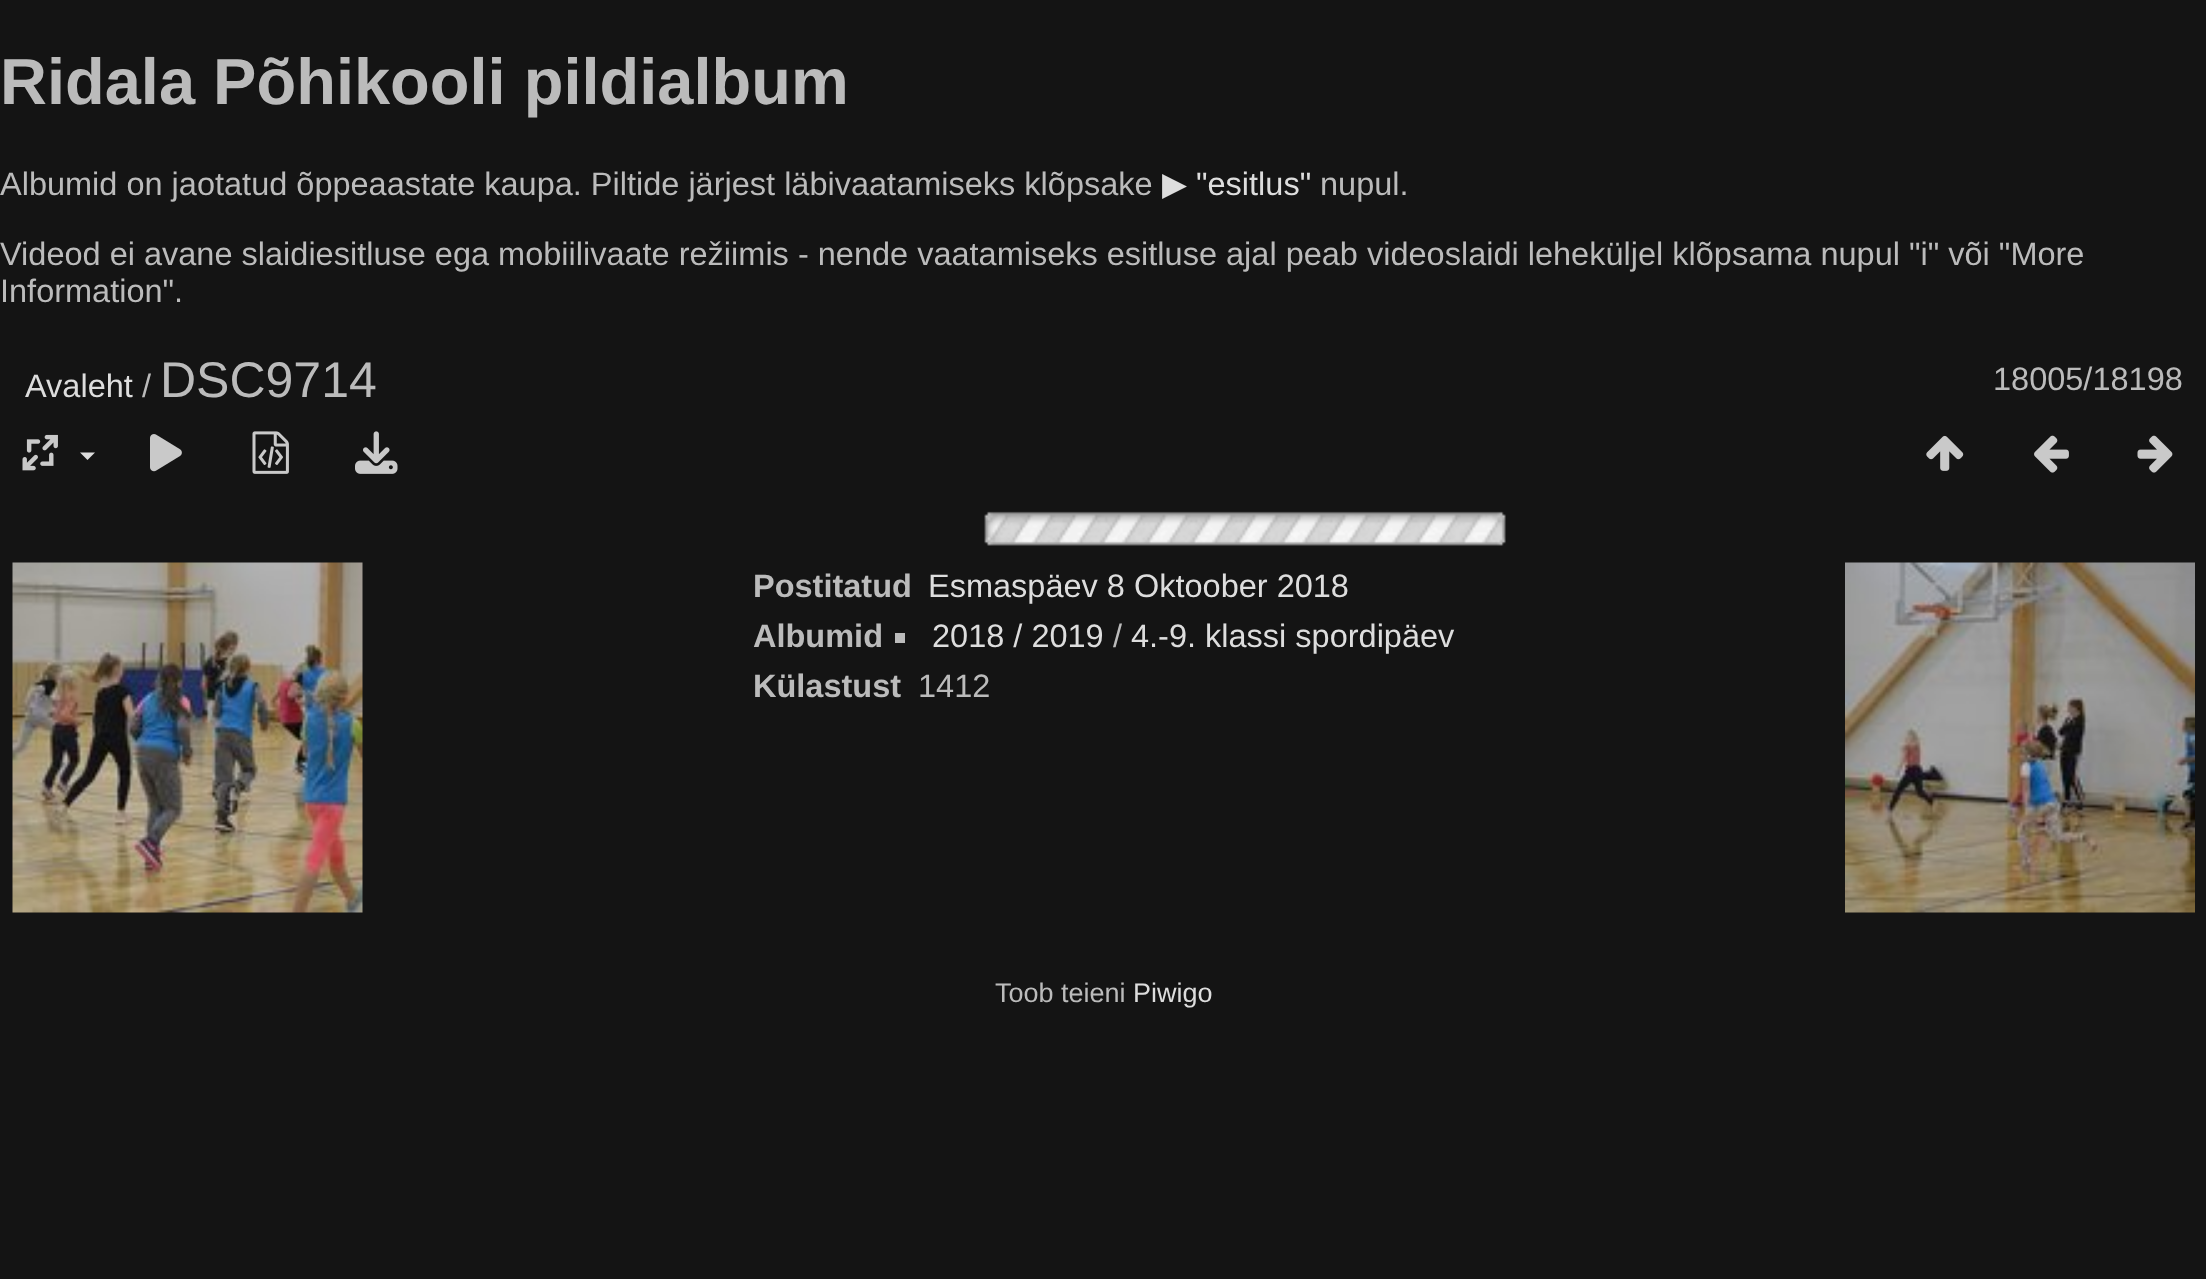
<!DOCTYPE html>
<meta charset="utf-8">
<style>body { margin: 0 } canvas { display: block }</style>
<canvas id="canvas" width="2206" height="1279"></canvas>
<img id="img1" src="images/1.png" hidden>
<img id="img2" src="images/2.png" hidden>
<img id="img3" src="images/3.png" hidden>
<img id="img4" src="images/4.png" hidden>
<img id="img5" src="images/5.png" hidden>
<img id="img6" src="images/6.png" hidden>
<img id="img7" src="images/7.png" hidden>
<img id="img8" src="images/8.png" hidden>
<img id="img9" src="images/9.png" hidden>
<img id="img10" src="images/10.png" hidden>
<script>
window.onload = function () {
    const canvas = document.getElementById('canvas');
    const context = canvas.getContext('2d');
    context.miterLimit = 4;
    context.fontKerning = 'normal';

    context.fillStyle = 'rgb(20, 20, 20)';
    context.fillRect(0, 0, 2206, 1279);
    context.drawImage(document.getElementById('img1'), 22, 434, 36, 37);
    context.fillStyle = 'rgb(221, 221, 221)';
    context.beginPath();
    context.moveTo(80, 452.5);
    context.lineTo(95, 452.5);
    context.lineTo(87.5, 460);
    context.closePath();
    context.fill();
    context.drawImage(document.getElementById('img2'), 150, 434, 32, 38);
    context.drawImage(document.getElementById('img3'), 252, 431, 37, 43);
    context.drawImage(document.getElementById('img4'), 355, 431, 43, 43);
    context.drawImage(document.getElementById('img5'), 1926, 435, 38, 36);
    context.drawImage(document.getElementById('img6'), 2034, 435, 35, 38);
    context.drawImage(document.getElementById('img7'), 2137, 435, 36, 38);
    context.drawImage(document.getElementById('img8'), 984, 511, 522, 35);
    context.drawImage(document.getElementById('img9'), 12, 562, 351, 351);
    context.drawImage(document.getElementById('img10'), 1845, 562, 350, 351);
    context.fillStyle = 'rgb(187, 187, 187)';
    context.fillRect(895, 633, 10, 10);
    context.font = 'bold 65px Liberation Sans';
    context.fillText('Ridala Põhikooli pildialbum', 0, 104);
    context.font = '32.5px Liberation Sans';
    context.fillText('Albumid on jaotatud õppeaastate kaupa. Piltide järjest läbivaatamiseks klõpsake', 0, 195);
    context.font = '32.5px DejaVu Sans';
    context.fillStyle = 'rgb(221, 221, 221)';
    context.fillText('▶', 1162, 195);
    context.font = '32.5px Liberation Sans';
    context.fillText('"esitlus"', 1196, 195);
    context.fillStyle = 'rgb(187, 187, 187)';
    context.fillText('nupul.', 1320, 195);
    context.fillText('Videod ei avane slaidiesitluse ega mobiilivaate režiimis - nende vaatamiseks esitluse ajal peab videoslaidi leheküljel klõpsama nupul "i" või "More', 0, 265);
    context.fillText('Information".', 0, 302);
    context.fillStyle = 'rgb(221, 221, 221)';
    context.fillText('Avaleht', 25, 397);
    context.fillStyle = 'rgb(187, 187, 187)';
    context.fillText('/', 142, 397);
    context.font = '50px Liberation Sans';
    context.fillText('DSC9714', 160, 397);
    context.font = '32.5px Liberation Sans';
    context.fillText('18005/18198', 1993, 390);
    context.font = 'bold 32.5px Liberation Sans';
    context.fillText('Postitatud', 753, 597);
    context.font = '32.5px Liberation Sans';
    context.fillStyle = 'rgb(221, 221, 221)';
    context.fillText('Esmaspäev 8 Oktoober 2018', 928, 597);
    context.font = 'bold 32.5px Liberation Sans';
    context.fillStyle = 'rgb(187, 187, 187)';
    context.fillText('Albumid', 753, 647);
    context.font = '32.5px Liberation Sans';
    context.fillStyle = 'rgb(221, 221, 221)';
    context.fillText('2018 / 2019', 932, 647);
    context.fillStyle = 'rgb(187, 187, 187)';
    context.fillText('/', 1113, 647);
    context.fillStyle = 'rgb(221, 221, 221)';
    context.fillText('4.-9. klassi spordipäev', 1131, 647);
    context.font = 'bold 32.5px Liberation Sans';
    context.fillStyle = 'rgb(187, 187, 187)';
    context.fillText('Külastust', 753, 697);
    context.font = '32.5px Liberation Sans';
    context.fillText('1412', 918, 697);
    context.font = '27px Liberation Sans';
    context.fillText('Toob teieni', 995, 1002);
    context.fillStyle = 'rgb(221, 221, 221)';
    context.fillText('Piwigo', 1133, 1002);
};
</script>
